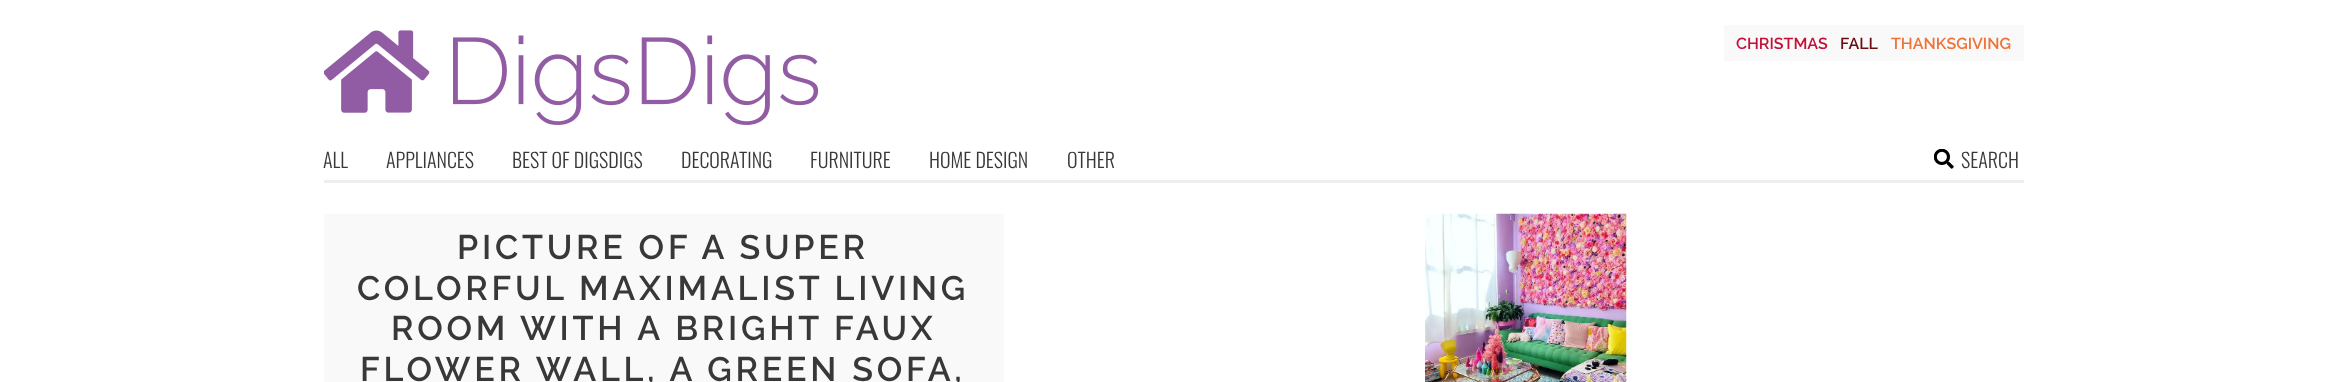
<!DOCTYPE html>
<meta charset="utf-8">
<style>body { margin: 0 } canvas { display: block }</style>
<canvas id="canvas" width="2346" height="382"></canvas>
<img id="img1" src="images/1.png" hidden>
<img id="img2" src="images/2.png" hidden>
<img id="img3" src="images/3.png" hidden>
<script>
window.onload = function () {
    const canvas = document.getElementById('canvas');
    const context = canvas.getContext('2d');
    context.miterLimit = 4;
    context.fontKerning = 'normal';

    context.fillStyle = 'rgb(255, 255, 255)';
    context.fillRect(0, 0, 2346, 382);
    context.drawImage(document.getElementById('img1'), 324, 30, 495, 95);
    context.fillStyle = 'rgb(249, 249, 249)';
    context.fillRect(1724, 25, 300, 36);
    context.fillStyle = 'rgb(238, 238, 238)';
    context.fillRect(324, 180, 1700, 3);
    context.drawImage(document.getElementById('img2'), 1934, 149, 20, 20);
    context.fillStyle = 'rgb(249, 249, 249)';
    context.fillRect(324, 214, 680, 168);
    context.drawImage(document.getElementById('img3'), 1425, 213, 202, 169);
    context.font = '100 16px Raleway';
    context.fillStyle = 'rgb(196, 16, 57)';
    context.fillText('CHRISTMAS', 1736, 49);
    context.fillStyle = 'rgb(104, 13, 19)';
    context.fillText('FALL', 1840, 49);
    context.fillStyle = 'rgb(240, 114, 54)';
    context.fillText('THANKSGIVING', 1891, 49);
    context.font = '300 20px Oswald';
    context.fillStyle = 'rgb(56, 56, 56)';
    context.fillText('ALL', 323, 168);
    context.fillText('APPLIANCES', 386, 168);
    context.fillText('BEST OF DIGSDIGS', 512, 168);
    context.fillText('DECORATING', 681, 168);
    context.fillText('FURNITURE', 810, 168);
    context.fillText('HOME DESIGN', 929, 168);
    context.fillText('OTHER', 1067, 168);
    context.fillText('SEARCH', 1961, 168);
    context.letterSpacing = '3.75px';
    context.font = '100 34px Raleway';
    context.fillText('PICTURE OF A SUPER', 457, 259);
    context.fillText('COLORFUL MAXIMALIST LIVING', 357, 300);
    context.fillText('ROOM WITH A BRIGHT FAUX', 391, 340);
    context.fillText('FLOWER WALL, A GREEN SOFA,', 360, 381);
};
</script>
